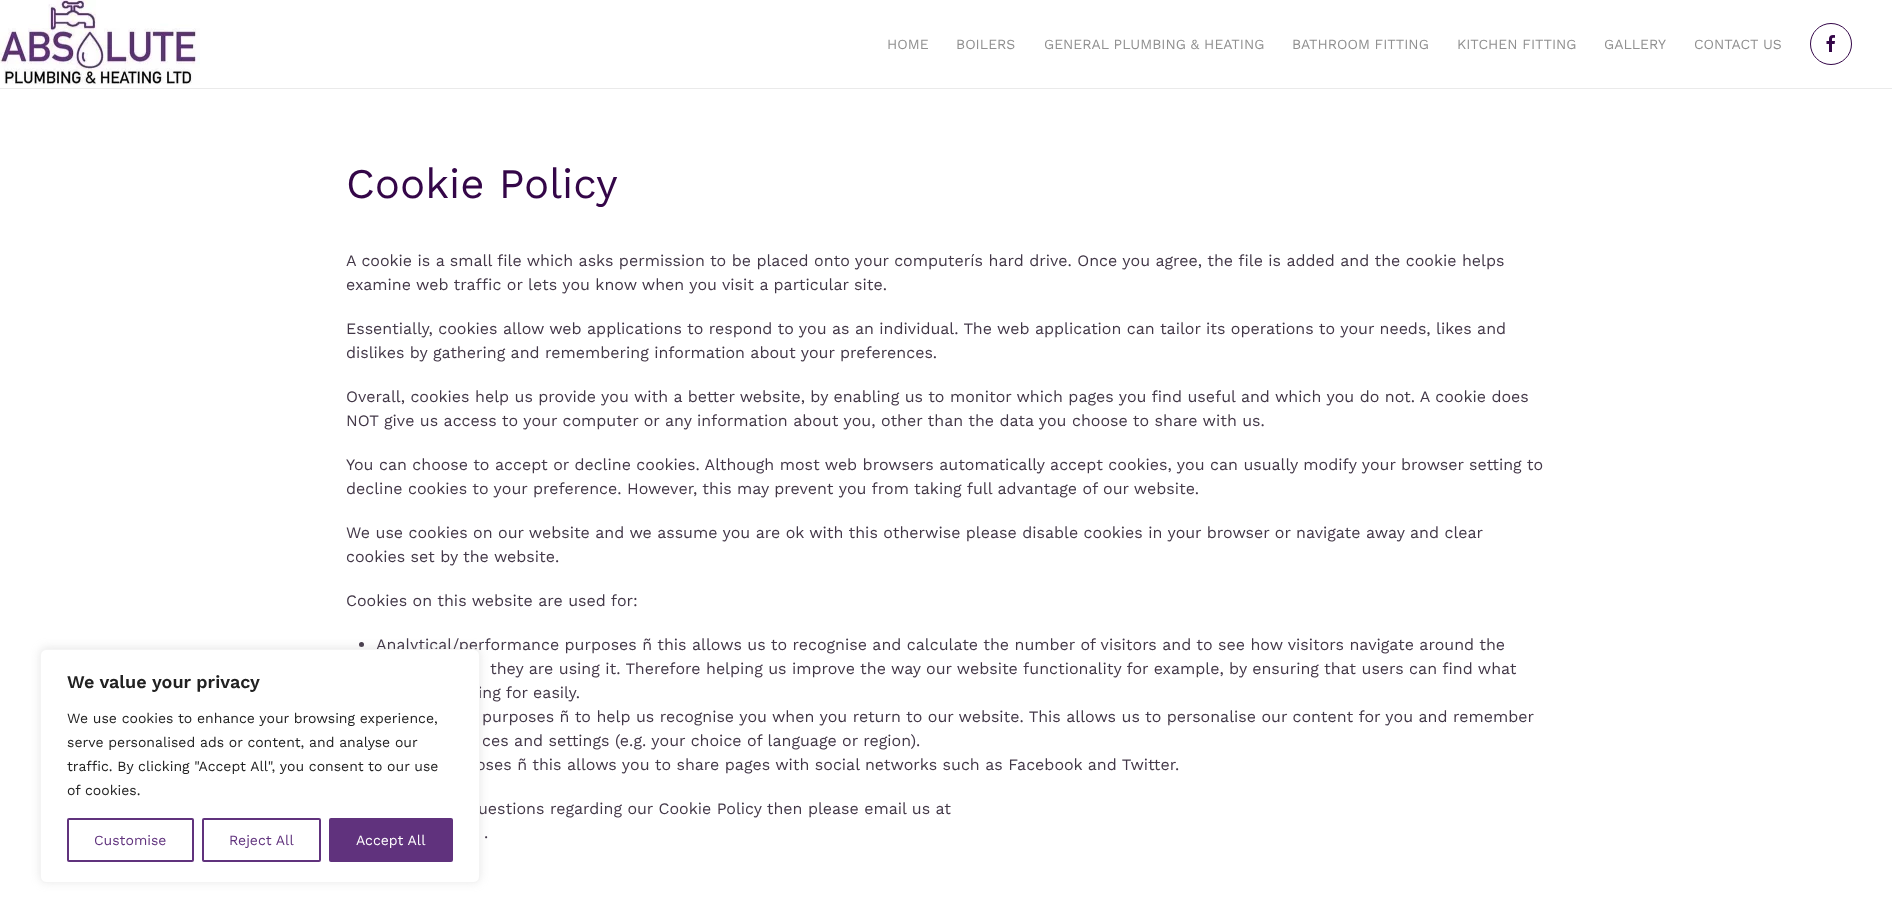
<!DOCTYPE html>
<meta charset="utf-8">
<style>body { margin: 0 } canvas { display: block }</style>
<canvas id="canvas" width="1892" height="923"></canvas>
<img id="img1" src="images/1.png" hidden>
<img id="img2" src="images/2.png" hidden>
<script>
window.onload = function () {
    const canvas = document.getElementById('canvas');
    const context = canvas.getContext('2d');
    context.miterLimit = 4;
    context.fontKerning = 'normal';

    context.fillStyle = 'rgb(255, 255, 255)';
    context.fillRect(0, 0, 1892, 923);
    context.fillStyle = 'rgb(67, 56, 72)';
    context.beginPath();
    context.arc(361.5, 644.5, 2.5, 0, 2 * Math.PI);
    context.fill();
    context.fillStyle = 'rgba(172, 171, 171, 0.3)';
    context.filter = 'blur(5px)';
    context.beginPath();
    context.roundRect(40, 648, 440, 234, 6);
    context.fill();
    context.filter = 'none';
    context.fillStyle = 'rgb(234, 234, 234)';
    context.fillRect(0, 88, 1892, 1);
    context.drawImage(document.getElementById('img1'), 0, 0, 200, 85);
    context.beginPath();
    context.arc(1831, 44, 20.5, 0, 2 * Math.PI);
    context.strokeStyle = 'rgb(52, 6, 72)';
    context.stroke();
    context.drawImage(document.getElementById('img2'), 1826, 35, 9, 17);
    context.font = '14px Work Sans';
    context.fillStyle = 'rgb(144, 144, 144)';
    context.fillText('HOME', 887, 49);
    context.fillText('BOILERS', 956, 49);
    context.fillText('GENERAL PLUMBING & HEATING', 1044, 49);
    context.fillText('BATHROOM FITTING', 1292, 49);
    context.fillText('KITCHEN FITTING', 1457, 49);
    context.fillText('GALLERY', 1604, 49);
    context.fillText('CONTACT US', 1694, 49);
    context.font = '42px Work Sans';
    context.fillStyle = 'rgb(52, 6, 72)';
    context.fillText('Cookie Policy', 346, 198);
    context.font = '16px Work Sans';
    context.fillStyle = 'rgb(67, 56, 72)';
    context.fillText('A cookie is a small file which asks permission to be placed onto your computerís hard drive. Once you agree, the file is added and the cookie helps', 346, 266);
    context.fillText('examine web traffic or lets you know when you visit a particular site.', 346, 290);
    context.fillText('Essentially, cookies allow web applications to respond to you as an individual. The web application can tailor its operations to your needs, likes and', 346, 334);
    context.fillText('dislikes by gathering and remembering information about your preferences.', 346, 358);
    context.fillText('Overall, cookies help us provide you with a better website, by enabling us to monitor which pages you find useful and which you do not. A cookie does', 346, 402);
    context.fillText('NOT give us access to your computer or any information about you, other than the data you choose to share with us.', 346, 426);
    context.fillText('You can choose to accept or decline cookies. Although most web browsers automatically accept cookies, you can usually modify your browser setting to', 346, 470);
    context.fillText('decline cookies to your preference. However, this may prevent you from taking full advantage of our website.', 346, 494);
    context.fillText('We use cookies on our website and we assume you are ok with this otherwise please disable cookies in your browser or navigate away and clear', 346, 538);
    context.fillText('cookies set by the website.', 346, 562);
    context.fillText('Cookies on this website are used for:', 346, 606);
    context.fillText('Analytical/performance purposes ñ this allows us to recognise and calculate the number of visitors and to see how visitors navigate around the', 376, 650);
    context.fillText('they are using it. Therefore helping us improve the way our website functionality for example, by ensuring that users can find what', 490, 674);
    context.fillText('ing for easily.', 478, 698);
    context.fillText('purposes ñ to help us recognise you when you return to our website. This allows us to personalise our content for you and remember', 482, 722);
    context.fillText('ces and settings (e.g. your choice of language or region).', 482, 746);
    context.fillText('oses ñ this allows you to share pages with social networks such as Facebook and Twitter.', 476, 770);
    context.fillText('uestions regarding our Cookie Policy then please email us at', 478, 814);
    context.fillStyle = 'rgb(255, 255, 255)';
    context.beginPath();
    context.roundRect(40.5, 649.5, 439, 233, 5.5);
    context.fill();
    context.strokeStyle = 'rgb(244, 244, 244)';
    context.stroke();
    context.fillStyle = 'rgb(96, 50, 125)';
    context.beginPath();
    context.roundRect(330, 819, 122, 42, 1);
    context.fill();
    context.strokeStyle = 'rgb(96, 50, 125)';
    context.lineWidth = 2;
    context.stroke();
    context.font = '14px Work Sans';
    context.fillStyle = 'rgb(255, 255, 255)';
    context.fillText('Accept All', 356, 845);
    context.beginPath();
    context.roundRect(203, 819, 117, 42, 1);
    context.stroke();
    context.fillStyle = 'rgb(96, 50, 125)';
    context.fillText('Reject All', 229, 845);
    context.beginPath();
    context.roundRect(68, 819, 125, 42, 1);
    context.stroke();
    context.fillText('Customise', 94, 845);
    context.fillStyle = 'rgb(33, 33, 33)';
    context.fillText('of cookies.', 67, 795);
    context.fillText('traffic. By clicking "Accept All", you consent to our use', 67, 771);
    context.fillText('serve personalised ads or content, and analyse our', 67, 747);
    context.fillText('We use cookies to enhance your browsing experience,', 67, 723);
    context.font = '600 18px Work Sans';
    context.fillText('We value your privacy', 67, 688);
    context.font = '16px Work Sans';
    context.fillStyle = 'rgb(67, 56, 72)';
    context.fillText('.', 484, 838);
};
</script>
